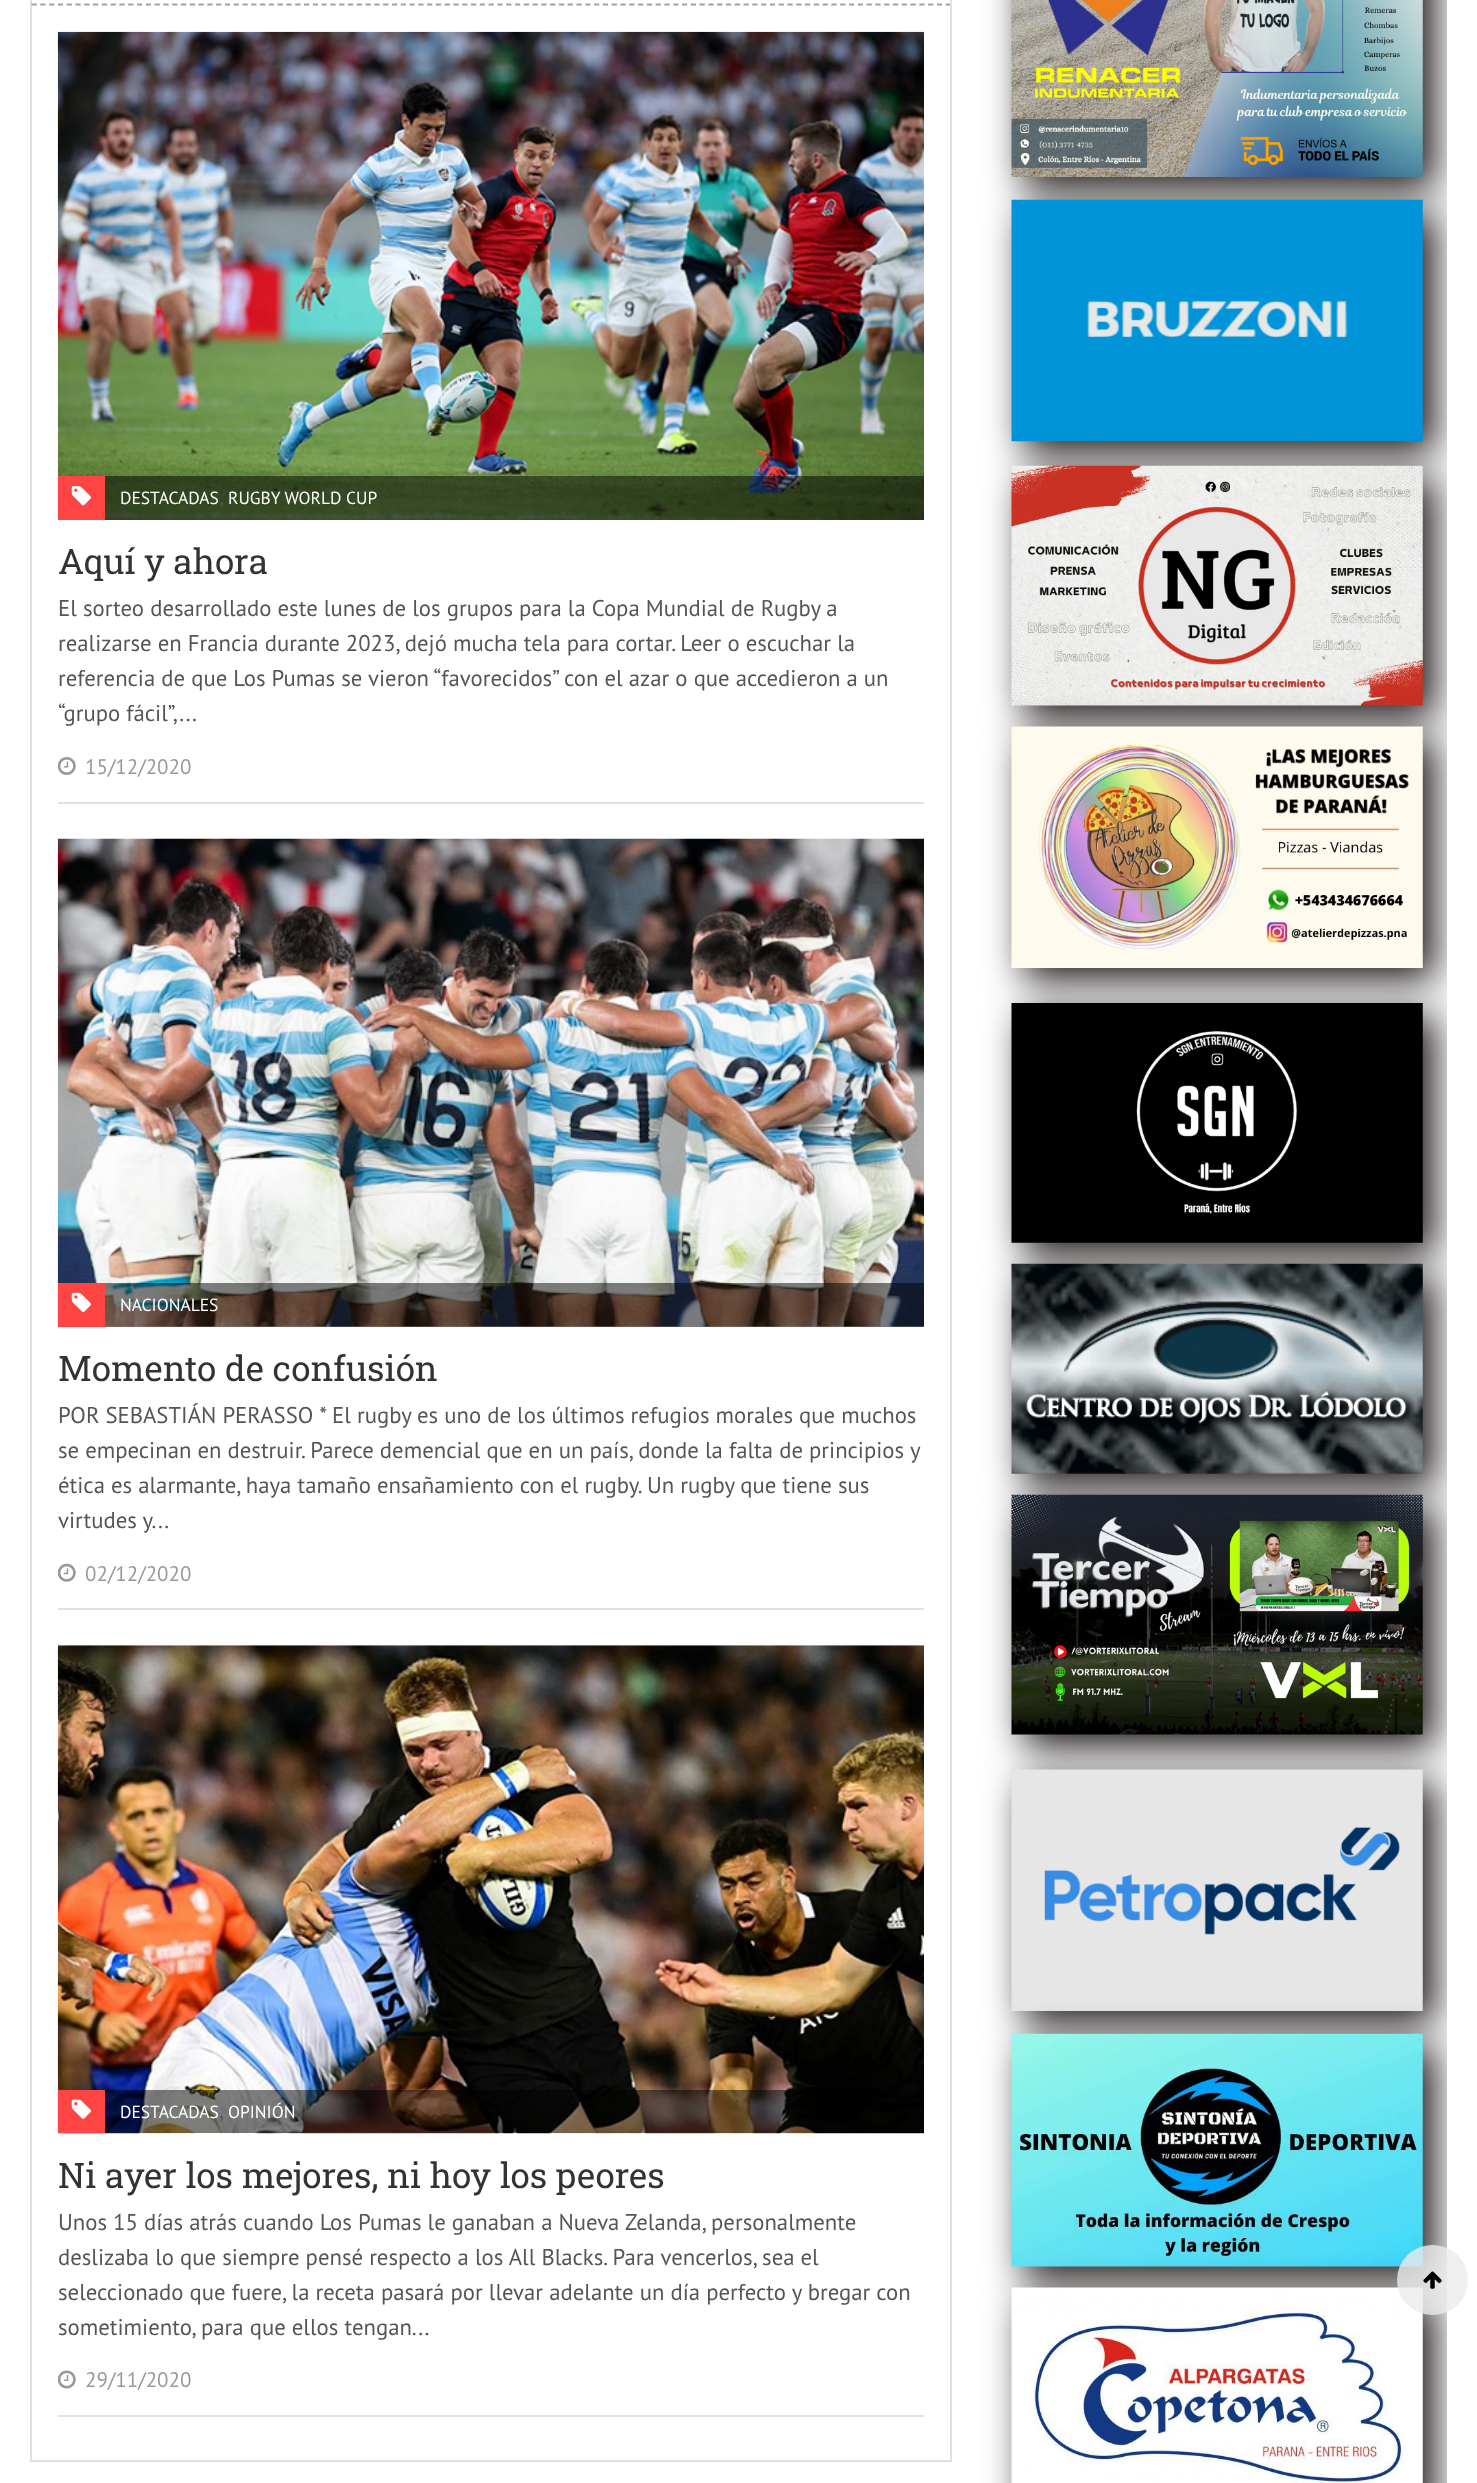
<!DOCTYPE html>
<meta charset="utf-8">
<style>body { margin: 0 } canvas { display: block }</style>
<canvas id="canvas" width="1477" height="2483"></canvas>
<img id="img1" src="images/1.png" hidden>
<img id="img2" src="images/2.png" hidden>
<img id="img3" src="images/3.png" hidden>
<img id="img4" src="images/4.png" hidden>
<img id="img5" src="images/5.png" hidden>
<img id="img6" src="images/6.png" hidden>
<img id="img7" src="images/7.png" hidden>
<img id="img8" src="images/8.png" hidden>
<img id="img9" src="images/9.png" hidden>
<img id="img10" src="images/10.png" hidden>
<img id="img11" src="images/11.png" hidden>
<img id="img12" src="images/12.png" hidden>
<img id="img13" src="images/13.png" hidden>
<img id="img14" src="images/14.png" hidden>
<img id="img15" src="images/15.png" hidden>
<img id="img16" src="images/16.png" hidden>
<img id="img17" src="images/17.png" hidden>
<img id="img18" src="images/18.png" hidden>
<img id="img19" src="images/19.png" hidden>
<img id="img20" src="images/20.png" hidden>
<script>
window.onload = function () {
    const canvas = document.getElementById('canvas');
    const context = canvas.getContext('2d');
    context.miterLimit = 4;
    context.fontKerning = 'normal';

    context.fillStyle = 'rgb(255, 255, 255)';
    context.fillRect(0, 0, 1477, 2483);
    context.strokeStyle = 'rgb(225, 225, 225)';
    context.lineWidth = 2;
    context.strokeRect(31, -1, 920, 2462);
    context.beginPath();
    context.moveTo(31.5, 4.5);
    context.lineTo(950, 4.5);
    context.strokeStyle = 'rgb(161, 161, 161)';
    context.lineWidth = 1.8;
    context.setLineDash([5.25, 3.54]);
    context.stroke();
    context.fillStyle = 'rgb(225, 225, 225)';
    context.fillRect(58, 802, 866, 2);
    context.drawImage(document.getElementById('img1'), 57, 31, 867, 489);
    context.fillStyle = 'rgba(0, 0, 0, 0.5)';
    context.fillRect(105, 476, 819, 44);
    context.fillStyle = 'rgb(255, 68, 68)';
    context.fillRect(58, 476, 47, 44);
    context.drawImage(document.getElementById('img2'), 71, 486, 20, 20);
    context.drawImage(document.getElementById('img3'), 58, 757, 18, 18);
    context.fillStyle = 'rgb(225, 225, 225)';
    context.fillRect(58, 1608, 866, 2);
    context.drawImage(document.getElementById('img4'), 57, 838, 867, 489);
    context.fillStyle = 'rgba(0, 0, 0, 0.5)';
    context.fillRect(105, 1283, 819, 44);
    context.fillStyle = 'rgb(255, 68, 68)';
    context.fillRect(58, 1283, 47, 44);
    context.drawImage(document.getElementById('img5'), 71, 1292, 20, 21);
    context.drawImage(document.getElementById('img6'), 58, 1563, 18, 19);
    context.fillStyle = 'rgb(225, 225, 225)';
    context.fillRect(58, 2415, 866, 2);
    context.drawImage(document.getElementById('img7'), 57, 1645, 867, 489);
    context.fillStyle = 'rgba(0, 0, 0, 0.5)';
    context.fillRect(105, 2090, 819, 43);
    context.fillStyle = 'rgb(255, 68, 68)';
    context.fillRect(58, 2090, 47, 43);
    context.drawImage(document.getElementById('img8'), 71, 2099, 20, 20);
    context.drawImage(document.getElementById('img9'), 58, 2370, 18, 19);
    context.save();
    context.beginPath();
    context.rect(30, 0, 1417, 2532);
    context.clip();
    context.fillStyle = 'rgb(29, 23, 23)';
    context.filter = 'blur(19px)';
    context.beginPath();
    context.rect(1024, -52, 411, 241);
    context.fill();
    context.filter = 'none';
    context.restore();
    context.drawImage(document.getElementById('img10'), 1011, 0, 412, 177);
    context.save();
    context.beginPath();
    context.rect(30, 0, 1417, 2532);
    context.clip();
    context.fillStyle = 'rgb(29, 23, 23)';
    context.filter = 'blur(19px)';
    context.beginPath();
    context.rect(1024, 212, 411, 241);
    context.fill();
    context.filter = 'none';
    context.restore();
    context.drawImage(document.getElementById('img11'), 1011, 199, 412, 243);
    context.save();
    context.beginPath();
    context.rect(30, 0, 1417, 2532);
    context.clip();
    context.fillStyle = 'rgb(29, 23, 23)';
    context.filter = 'blur(19px)';
    context.beginPath();
    context.rect(1024, 478, 411, 240);
    context.fill();
    context.filter = 'none';
    context.restore();
    context.drawImage(document.getElementById('img12'), 1011, 465, 412, 241);
    context.save();
    context.beginPath();
    context.rect(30, 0, 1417, 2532);
    context.clip();
    context.fillStyle = 'rgb(29, 23, 23)';
    context.filter = 'blur(19px)';
    context.beginPath();
    context.rect(1024, 739, 411, 241);
    context.fill();
    context.filter = 'none';
    context.restore();
    context.drawImage(document.getElementById('img13'), 1011, 726, 412, 242);
    context.save();
    context.beginPath();
    context.rect(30, 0, 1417, 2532);
    context.clip();
    context.fillStyle = 'rgb(29, 23, 23)';
    context.filter = 'blur(19px)';
    context.beginPath();
    context.rect(1024, 1015, 411, 240);
    context.fill();
    context.filter = 'none';
    context.restore();
    context.drawImage(document.getElementById('img14'), 1011, 1003, 412, 240);
    context.save();
    context.beginPath();
    context.rect(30, 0, 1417, 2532);
    context.clip();
    context.fillStyle = 'rgb(29, 23, 23)';
    context.filter = 'blur(19px)';
    context.beginPath();
    context.rect(1024, 1276, 411, 210);
    context.fill();
    context.filter = 'none';
    context.restore();
    context.drawImage(document.getElementById('img15'), 1011, 1263, 412, 211);
    context.save();
    context.beginPath();
    context.rect(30, 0, 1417, 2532);
    context.clip();
    context.fillStyle = 'rgb(29, 23, 23)';
    context.filter = 'blur(19px)';
    context.beginPath();
    context.rect(1024, 1507, 411, 240);
    context.fill();
    context.filter = 'none';
    context.restore();
    context.drawImage(document.getElementById('img16'), 1011, 1494, 412, 241);
    context.save();
    context.beginPath();
    context.rect(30, 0, 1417, 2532);
    context.clip();
    context.fillStyle = 'rgb(29, 23, 23)';
    context.filter = 'blur(19px)';
    context.beginPath();
    context.rect(1024, 1782, 411, 241);
    context.fill();
    context.filter = 'none';
    context.restore();
    context.drawImage(document.getElementById('img17'), 1011, 1769, 412, 242);
    context.save();
    context.beginPath();
    context.rect(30, 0, 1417, 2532);
    context.clip();
    context.fillStyle = 'rgb(29, 23, 23)';
    context.filter = 'blur(19px)';
    context.beginPath();
    context.rect(1024, 2046, 411, 233);
    context.fill();
    context.filter = 'none';
    context.restore();
    context.drawImage(document.getElementById('img18'), 1011, 2033, 412, 234);
    context.save();
    context.beginPath();
    context.rect(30, 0, 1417, 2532);
    context.clip();
    context.fillStyle = 'rgb(29, 23, 23)';
    context.filter = 'blur(19px)';
    context.beginPath();
    context.rect(1024, 2300, 411, 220);
    context.fill();
    context.filter = 'none';
    context.restore();
    context.drawImage(document.getElementById('img19'), 1011, 2287, 412, 196);
    context.fillStyle = 'rgba(235, 235, 235, 0.8)';
    context.beginPath();
    context.roundRect(1397, 2245, 71, 70, 35);
    context.fill();
    context.drawImage(document.getElementById('img20'), 1423, 2271, 19, 18);
    context.font = '17.5px PT Sans';
    context.fillStyle = 'rgb(255, 255, 255)';
    context.fillText('DESTACADAS', 120, 504);
    context.font = '22.75px PT Sans';
    context.fillStyle = 'rgb(85, 85, 85)';
    context.fillText(',', 219, 504);
    context.font = '17.5px PT Sans';
    context.fillStyle = 'rgb(255, 255, 255)';
    context.fillText('RUGBY WORLD CUP', 228, 504);
    context.font = '35px Roboto Slab';
    context.fillStyle = 'rgb(51, 51, 51)';
    context.fillText('Aquí y ahora', 58, 574);
    context.font = '22.75px PT Sans';
    context.fillStyle = 'rgb(85, 85, 85)';
    context.fillText('El sorteo desarrollado este lunes de los grupos para la Copa Mundial de Rugby a', 58, 616);
    context.fillText('realizarse en Francia durante 2023, dejó mucha tela para cortar. Leer o escuchar la', 58, 651);
    context.fillText('referencia de que Los Pumas se vieron “favorecidos” con el azar o que accedieron a un', 58, 686);
    context.fillText('“grupo fácil”,...', 58, 721);
    context.font = '21px PT Sans';
    context.fillStyle = 'rgb(153, 153, 153)';
    context.fillText('15/12/2020', 85, 774);
    context.font = '17.5px PT Sans';
    context.fillStyle = 'rgb(255, 255, 255)';
    context.fillText('NACIONALES', 120, 1311);
    context.font = '35px Roboto Slab';
    context.fillStyle = 'rgb(51, 51, 51)';
    context.fillText('Momento de confusión', 58, 1381);
    context.font = '22.75px PT Sans';
    context.fillStyle = 'rgb(85, 85, 85)';
    context.fillText('POR SEBASTIÁN PERASSO * El rugby es uno de los últimos refugios morales que muchos', 58, 1423);
    context.fillText('se empecinan en destruir. Parece demencial que en un país, donde la falta de principios y', 58, 1458);
    context.fillText('ética es alarmante, haya tamaño ensañamiento con el rugby. Un rugby que tiene sus', 58, 1493);
    context.fillText('virtudes y...', 58, 1528);
    context.font = '21px PT Sans';
    context.fillStyle = 'rgb(153, 153, 153)';
    context.fillText('02/12/2020', 85, 1581);
    context.font = '17.5px PT Sans';
    context.fillStyle = 'rgb(255, 255, 255)';
    context.fillText('DESTACADAS', 120, 2118);
    context.font = '22.75px PT Sans';
    context.fillStyle = 'rgb(85, 85, 85)';
    context.fillText(',', 219, 2118);
    context.font = '17.5px PT Sans';
    context.fillStyle = 'rgb(255, 255, 255)';
    context.fillText('OPINIÓN', 228, 2118);
    context.font = '35px Roboto Slab';
    context.fillStyle = 'rgb(51, 51, 51)';
    context.fillText('Ni ayer los mejores, ni hoy los peores', 58, 2188);
    context.font = '22.75px PT Sans';
    context.fillStyle = 'rgb(85, 85, 85)';
    context.fillText('Unos 15 días atrás cuando Los Pumas le ganaban a Nueva Zelanda, personalmente', 58, 2230);
    context.fillText('deslizaba lo que siempre pensé respecto a los All Blacks. Para vencerlos, sea el', 58, 2265);
    context.fillText('seleccionado que fuere, la receta pasará por llevar adelante un día perfecto y bregar con', 58, 2300);
    context.fillText('sometimiento, para que ellos tengan...', 58, 2335);
    context.font = '21px PT Sans';
    context.fillStyle = 'rgb(153, 153, 153)';
    context.fillText('29/11/2020', 85, 2387);
};
</script>
